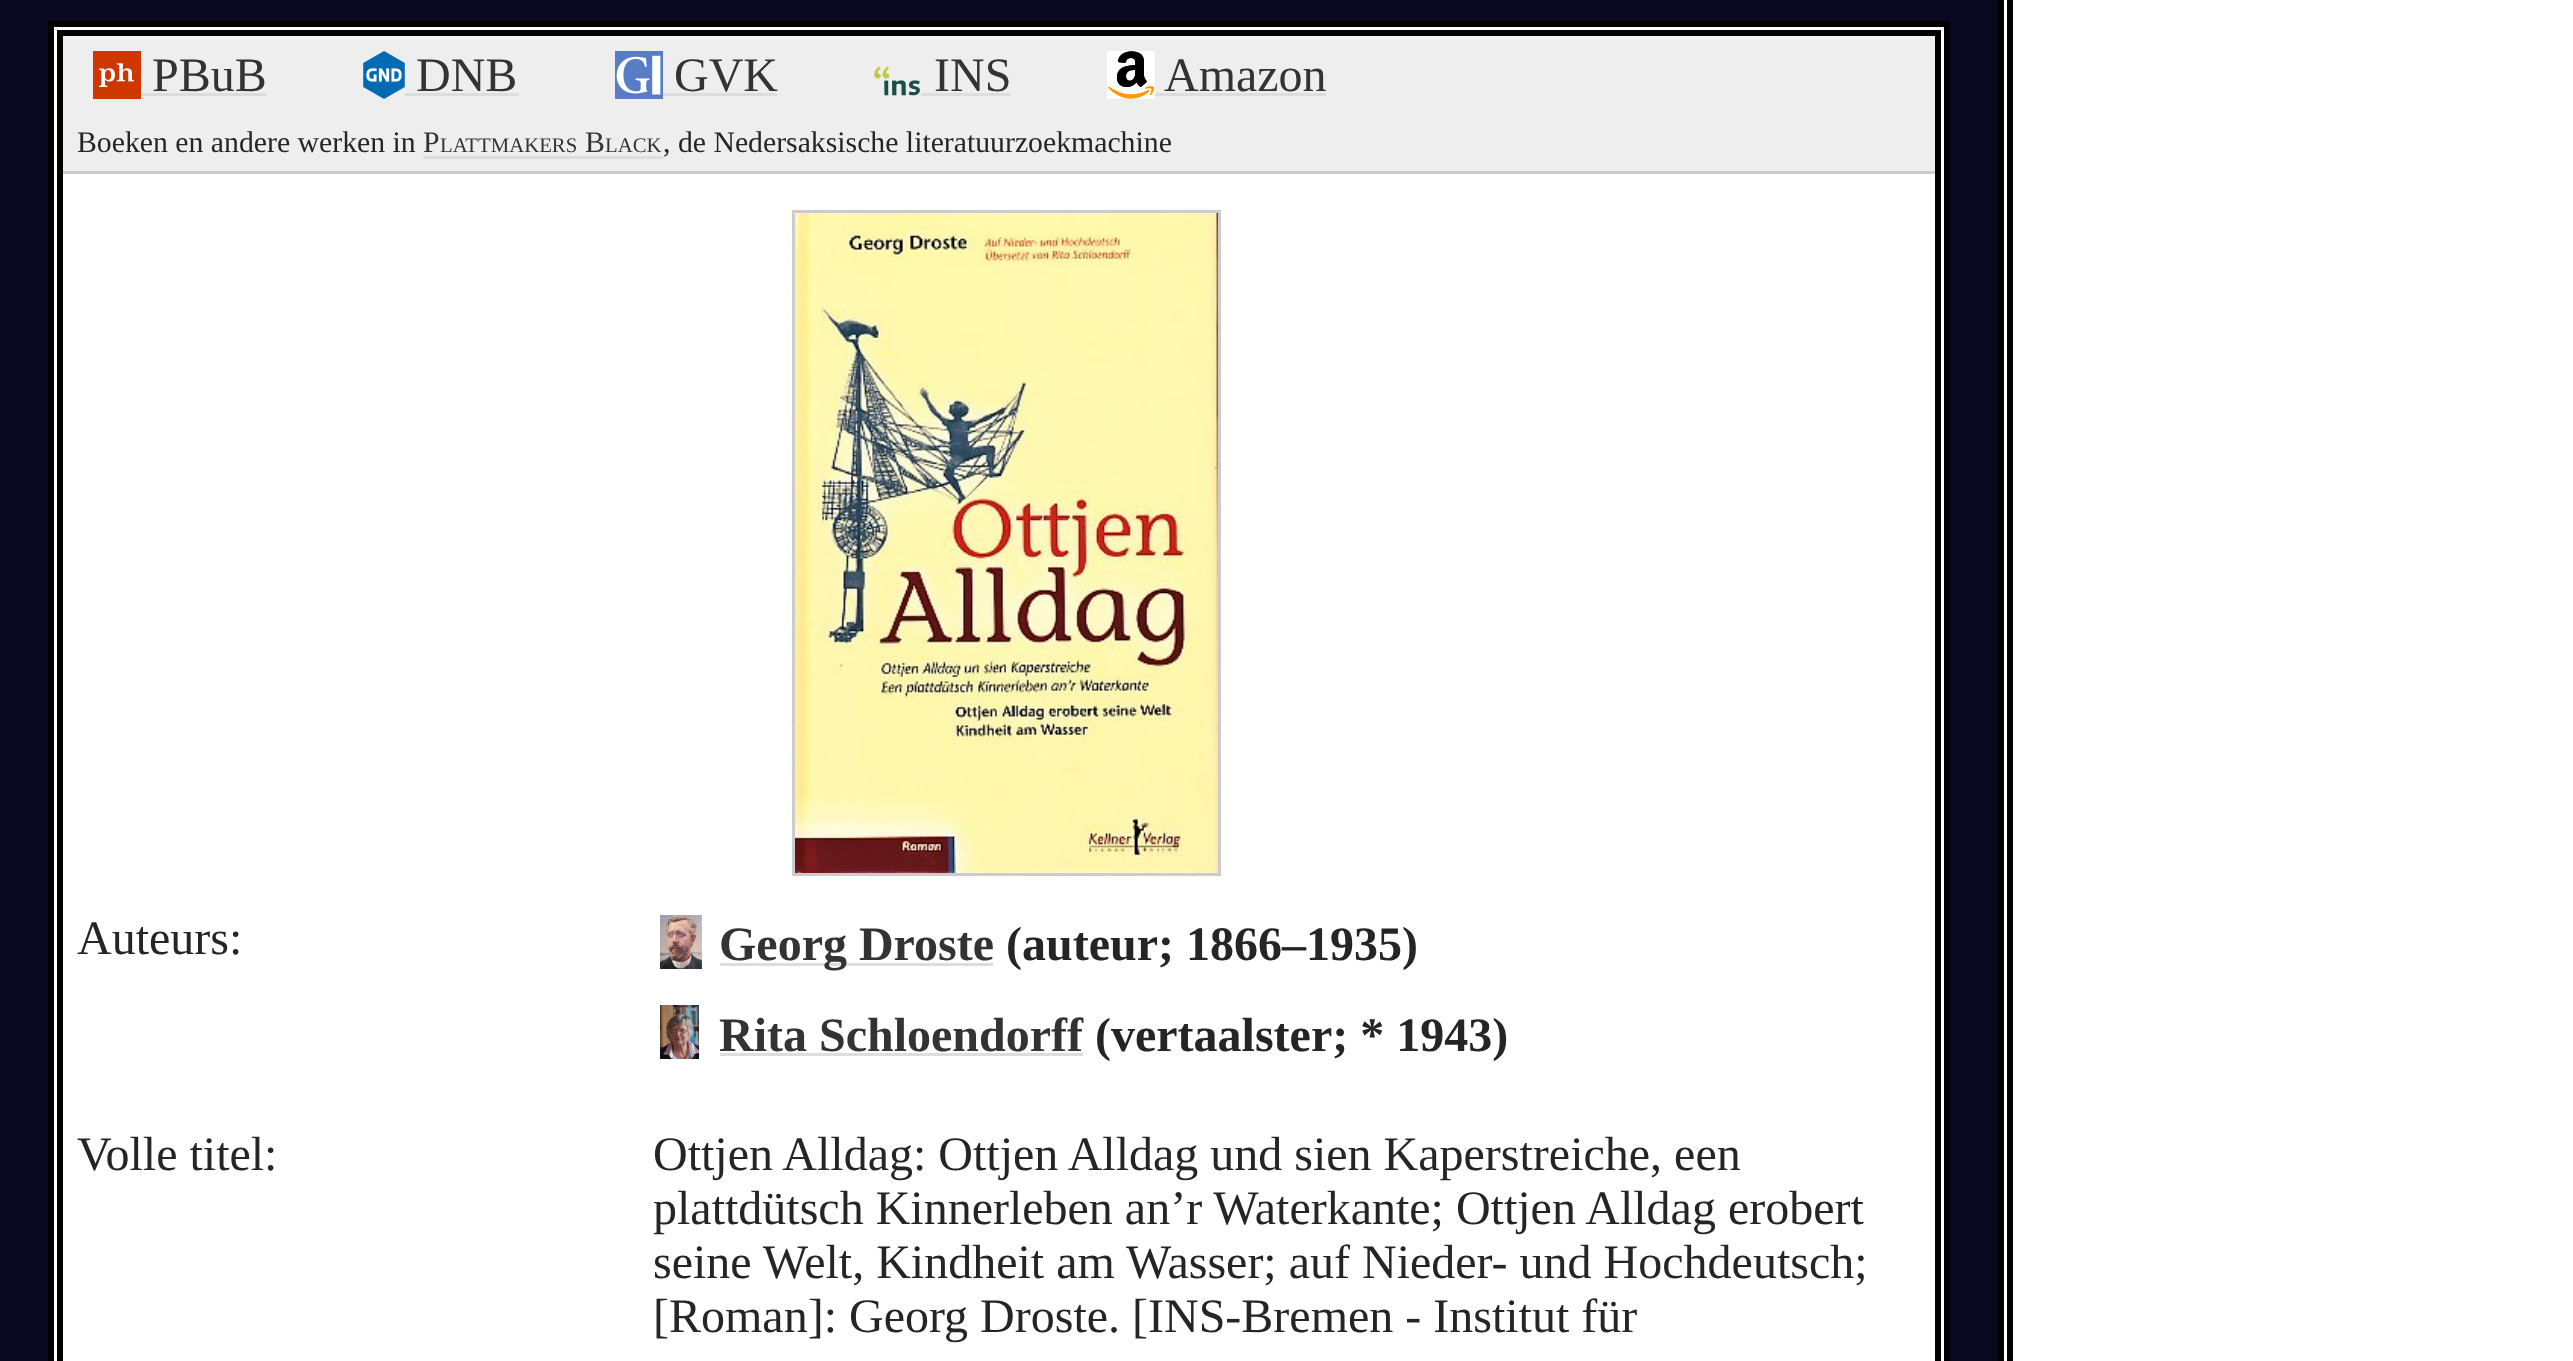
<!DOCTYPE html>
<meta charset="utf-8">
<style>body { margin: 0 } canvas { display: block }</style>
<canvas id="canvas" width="2573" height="1361"></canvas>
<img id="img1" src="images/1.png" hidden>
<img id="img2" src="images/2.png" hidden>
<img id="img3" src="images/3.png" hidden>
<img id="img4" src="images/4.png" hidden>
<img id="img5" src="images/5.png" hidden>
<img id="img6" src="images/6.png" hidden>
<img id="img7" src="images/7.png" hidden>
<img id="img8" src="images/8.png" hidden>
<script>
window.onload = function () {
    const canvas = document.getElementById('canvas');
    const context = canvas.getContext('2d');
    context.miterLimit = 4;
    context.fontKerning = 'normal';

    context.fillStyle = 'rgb(8, 8, 32)';
    context.fillRect(0, 0, 2573, 1361);
    context.fillStyle = 'rgb(255, 255, 255)';
    context.beginPath();
    context.rect(51, 24, 1896, 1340);
    context.fill();
    context.strokeStyle = 'rgb(0, 0, 0)';
    context.lineWidth = 6;
    context.stroke();
    context.strokeRect(60, 33, 1878, 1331);
    context.fillStyle = 'rgb(238, 238, 238)';
    context.fillRect(63, 36, 1872, 135);
    context.fillStyle = 'rgb(204, 204, 204)';
    context.fillRect(63, 171, 1872, 3);
    context.drawImage(document.getElementById('img1'), 93, 51, 48, 48);
    context.fillStyle = 'rgb(221, 221, 221)';
    context.fillRect(141, 93, 126, 3);
    context.drawImage(document.getElementById('img2'), 363, 51, 42, 48);
    context.fillRect(405, 93, 114, 3);
    context.drawImage(document.getElementById('img3'), 615, 51, 48, 48);
    context.fillRect(663, 93, 114, 3);
    context.drawImage(document.getElementById('img4'), 874, 66, 46, 30);
    context.fillRect(921, 93, 90, 3);
    context.drawImage(document.getElementById('img5'), 1107, 51, 48, 48);
    context.fillRect(1155, 93, 171, 3);
    context.fillRect(423, 156, 240, 3);
    context.drawImage(document.getElementById('img6'), 795, 213, 423, 660);
    context.strokeStyle = 'rgb(204, 204, 204)';
    context.lineWidth = 3;
    context.strokeRect(793.5, 211.5, 426, 663);
    context.drawImage(document.getElementById('img7'), 660, 915, 42, 54);
    context.fillRect(720, 963, 273, 3);
    context.drawImage(document.getElementById('img8'), 660, 1005, 39, 54);
    context.fillRect(720, 1053, 363, 3);
    context.fillStyle = 'rgb(255, 255, 255)';
    context.fillRect(2004, 0, 569, 1361);
    context.fillStyle = 'rgb(0, 0, 0)';
    context.fillRect(1998, 0, 6, 1361);
    context.fillRect(2007, 0, 6, 1361);
    context.font = '48px Liberation Serif';
    context.fillStyle = 'rgb(51, 51, 51)';
    context.fillText('PBuB', 152, 91);
    context.fillText('DNB', 416, 91);
    context.fillText('GVK', 674, 91);
    context.fillText('INS', 934, 91);
    context.fillText('Amazon', 1164, 91);
    context.font = '29.75px Liberation Serif';
    context.fillStyle = 'rgb(37, 37, 37)';
    context.fillText('Boeken en andere werken in', 77, 152);
    context.fillStyle = 'rgb(51, 51, 51)';
    context.fillText('P', 423, 152);
    context.font = '20.75px Liberation Serif';
    context.fillText('LATTMAKERS', 440, 152);
    context.font = '29.75px Liberation Serif';
    context.fillText('B', 585, 152);
    context.font = '20.75px Liberation Serif';
    context.fillText('LACK', 605, 152);
    context.font = '29.75px Liberation Serif';
    context.fillStyle = 'rgb(37, 37, 37)';
    context.fillText(', de Nedersaksische literatuurzoekmachine', 663, 152);
    context.font = '48px Liberation Serif';
    context.fillText('Auteurs:', 77, 954);
    context.font = 'bold 48px Liberation Serif';
    context.fillStyle = 'rgb(51, 51, 51)';
    context.fillText('Georg Droste', 719, 960);
    context.fillStyle = 'rgb(37, 37, 37)';
    context.fillText('(auteur; 1866–1935)', 1006, 960);
    context.fillStyle = 'rgb(51, 51, 51)';
    context.fillText('Rita Schloendorff', 719, 1051);
    context.fillStyle = 'rgb(37, 37, 37)';
    context.fillText('(vertaalster; * 1943)', 1095, 1051);
    context.font = '48px Liberation Serif';
    context.fillText('Volle titel:', 77, 1170);
    context.fillText('Ottjen Alldag: Ottjen Alldag und sien Kaperstreiche, een', 653, 1170);
    context.fillText('plattdütsch Kinnerleben an’r Waterkante; Ottjen Alldag erobert', 653, 1224);
    context.fillText('seine Welt, Kindheit am Wasser; auf Nieder- und Hochdeutsch;', 653, 1278);
    context.fillText('[Roman]: Georg Droste. [INS-Bremen - Institut für', 653, 1332);
};
</script>
